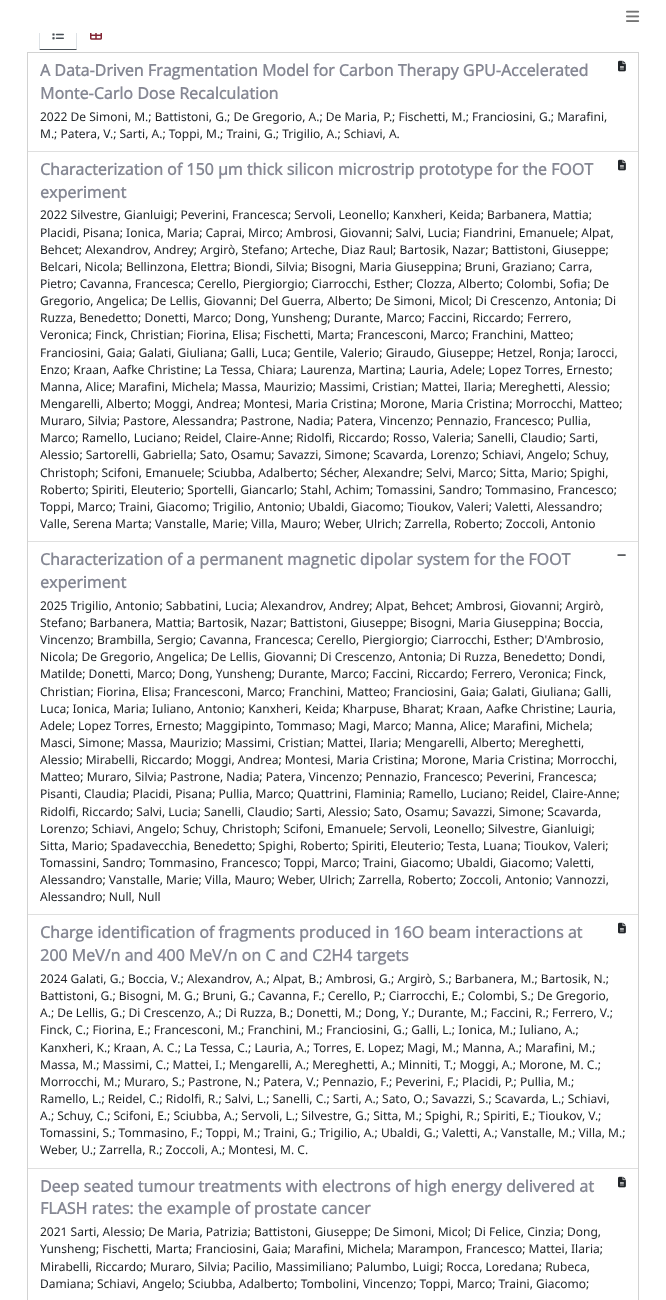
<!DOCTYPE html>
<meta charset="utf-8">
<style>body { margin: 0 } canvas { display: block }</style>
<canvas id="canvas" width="666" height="1300"></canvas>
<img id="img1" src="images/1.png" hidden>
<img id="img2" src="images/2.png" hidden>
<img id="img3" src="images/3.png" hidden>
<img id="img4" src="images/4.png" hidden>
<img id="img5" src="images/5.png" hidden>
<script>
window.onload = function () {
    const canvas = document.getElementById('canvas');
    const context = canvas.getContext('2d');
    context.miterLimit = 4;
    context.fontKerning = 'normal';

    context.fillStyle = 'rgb(255, 255, 255)';
    context.fillRect(0, 0, 666, 1300);
    context.fillStyle = 'rgb(222, 226, 230)';
    context.beginPath();
    context.moveTo(77, 50);
    context.lineTo(77, 23.5);
    context.bezierCurveTo(77, 22, 76.5, 21, 75.5, 20.5);
    context.lineTo(75, 21);
    context.bezierCurveTo(75.5, 21.5, 76, 22.5, 76, 23.5);
    context.lineTo(76, 49);
    context.closePath();
    context.fill();
    context.fillStyle = 'rgb(73, 80, 87)';
    context.beginPath();
    context.moveTo(77, 50);
    context.lineTo(76, 49);
    context.lineTo(40, 49);
    context.lineTo(39, 50);
    context.closePath();
    context.fill();
    context.fillStyle = 'rgb(222, 226, 230)';
    context.beginPath();
    context.moveTo(39, 50);
    context.lineTo(40, 49);
    context.lineTo(40, 23.5);
    context.bezierCurveTo(40, 22.5, 40.5, 21.5, 41, 21);
    context.lineTo(40.5, 20.5);
    context.bezierCurveTo(39.5, 21, 39, 22, 39, 23.5);
    context.closePath();
    context.fill();
    context.fillStyle = 'rgb(255, 255, 255)';
    context.fillRect(39, 20, 38, 13);
    context.drawImage(document.getElementById('img1'), 626, 10, 14, 12);
    context.drawImage(document.getElementById('img2'), 52, 33, 12, 7);
    context.drawImage(document.getElementById('img3'), 90, 33, 12, 7);
    context.strokeStyle = 'rgb(210, 210, 210)';
    context.strokeRect(27.5, 52.5, 611, 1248);
    context.fillStyle = 'rgb(223, 223, 223)';
    context.fillRect(28, 151, 610, 1);
    context.drawImage(document.getElementById('img4'), 618, 60, 8, 12);
    context.fillRect(28, 541, 610, 1);
    context.drawImage(document.getElementById('img4'), 618, 159, 8, 12);
    context.fillRect(28, 914, 610, 1);
    context.drawImage(document.getElementById('img5'), 617, 554, 9, 2);
    context.fillRect(28, 1168, 610, 1);
    context.drawImage(document.getElementById('img4'), 618, 922, 8, 12);
    context.drawImage(document.getElementById('img4'), 618, 1176, 8, 12);
    context.font = 'bold 16px Open Sans';
    context.fillStyle = 'rgb(134, 136, 148)';
    context.fillText('A Data-Driven Fragmentation Model for Carbon Therapy GPU-Accelerated', 40, 76);
    context.fillText('Monte-Carlo Dose Recalculation', 40, 99);
    context.font = '12px Noto Sans';
    context.fillStyle = 'rgb(33, 37, 41)';
    context.fillText('2022 De Simoni, M.; Battistoni, G.; De Gregorio, A.; De Maria, P.; Fischetti, M.; Franciosini, G.; Marafini,', 40, 121);
    context.fillText('M.; Patera, V.; Sarti, A.; Toppi, M.; Traini, G.; Trigilio, A.; Schiavi, A.', 40, 138);
    context.font = 'bold 16px Open Sans';
    context.fillStyle = 'rgb(134, 136, 148)';
    context.fillText('Characterization of 150 μm thick silicon microstrip prototype for the FOOT', 40, 175);
    context.fillText('experiment', 40, 198);
    context.font = '12px Noto Sans';
    context.fillStyle = 'rgb(33, 37, 41)';
    context.fillText('2022 Silvestre, Gianluigi; Peverini, Francesca; Servoli, Leonello; Kanxheri, Keida; Barbanera, Mattia;', 40, 219);
    context.fillText('Placidi, Pisana; Ionica, Maria; Caprai, Mirco; Ambrosi, Giovanni; Salvi, Lucia; Fiandrini, Emanuele; Alpat,', 40, 237);
    context.fillText('Behcet; Alexandrov, Andrey; Argirò, Stefano; Arteche, Diaz Raul; Bartosik, Nazar; Battistoni, Giuseppe;', 40, 254);
    context.fillText('Belcari, Nicola; Bellinzona, Elettra; Biondi, Silvia; Bisogni, Maria Giuseppina; Bruni, Graziano; Carra,', 40, 271);
    context.fillText('Pietro; Cavanna, Francesca; Cerello, Piergiorgio; Ciarrocchi, Esther; Clozza, Alberto; Colombi, Sofia; De', 40, 288);
    context.fillText('Gregorio, Angelica; De Lellis, Giovanni; Del Guerra, Alberto; De Simoni, Micol; Di Crescenzo, Antonia; Di', 40, 305);
    context.fillText('Ruzza, Benedetto; Donetti, Marco; Dong, Yunsheng; Durante, Marco; Faccini, Riccardo; Ferrero,', 40, 322);
    context.fillText('Veronica; Finck, Christian; Fiorina, Elisa; Fischetti, Marta; Francesconi, Marco; Franchini, Matteo;', 40, 339);
    context.fillText('Franciosini, Gaia; Galati, Giuliana; Galli, Luca; Gentile, Valerio; Giraudo, Giuseppe; Hetzel, Ronja; Iarocci,', 40, 357);
    context.fillText('Enzo; Kraan, Aafke Christine; La Tessa, Chiara; Laurenza, Martina; Lauria, Adele; Lopez Torres, Ernesto;', 40, 374);
    context.fillText('Manna, Alice; Marafini, Michela; Massa, Maurizio; Massimi, Cristian; Mattei, Ilaria; Mereghetti, Alessio;', 40, 391);
    context.fillText('Mengarelli, Alberto; Moggi, Andrea; Montesi, Maria Cristina; Morone, Maria Cristina; Morrocchi, Matteo;', 40, 408);
    context.fillText('Muraro, Silvia; Pastore, Alessandra; Pastrone, Nadia; Patera, Vincenzo; Pennazio, Francesco; Pullia,', 40, 425);
    context.fillText('Marco; Ramello, Luciano; Reidel, Claire-Anne; Ridolfi, Riccardo; Rosso, Valeria; Sanelli, Claudio; Sarti,', 40, 442);
    context.fillText('Alessio; Sartorelli, Gabriella; Sato, Osamu; Savazzi, Simone; Scavarda, Lorenzo; Schiavi, Angelo; Schuy,', 40, 459);
    context.fillText('Christoph; Scifoni, Emanuele; Sciubba, Adalberto; Sécher, Alexandre; Selvi, Marco; Sitta, Mario; Spighi,', 40, 477);
    context.fillText('Roberto; Spiriti, Eleuterio; Sportelli, Giancarlo; Stahl, Achim; Tomassini, Sandro; Tommasino, Francesco;', 40, 494);
    context.fillText('Toppi, Marco; Traini, Giacomo; Trigilio, Antonio; Ubaldi, Giacomo; Tioukov, Valeri; Valetti, Alessandro;', 40, 511);
    context.fillText('Valle, Serena Marta; Vanstalle, Marie; Villa, Mauro; Weber, Ulrich; Zarrella, Roberto; Zoccoli, Antonio', 40, 528);
    context.font = 'bold 16px Open Sans';
    context.fillStyle = 'rgb(134, 136, 148)';
    context.fillText('Characterization of a permanent magnetic dipolar system for the FOOT', 40, 565);
    context.fillText('experiment', 40, 588);
    context.font = '12px Noto Sans';
    context.fillStyle = 'rgb(33, 37, 41)';
    context.fillText('2025 Trigilio, Antonio; Sabbatini, Lucia; Alexandrov, Andrey; Alpat, Behcet; Ambrosi, Giovanni; Argirò,', 40, 610);
    context.fillText('Stefano; Barbanera, Mattia; Bartosik, Nazar; Battistoni, Giuseppe; Bisogni, Maria Giuseppina; Boccia,', 40, 627);
    context.fillText('Vincenzo; Brambilla, Sergio; Cavanna, Francesca; Cerello, Piergiorgio; Ciarrocchi, Esther; D\'Ambrosio,', 40, 644);
    context.fillText('Nicola; De Gregorio, Angelica; De Lellis, Giovanni; Di Crescenzo, Antonia; Di Ruzza, Benedetto; Dondi,', 40, 661);
    context.fillText('Matilde; Donetti, Marco; Dong, Yunsheng; Durante, Marco; Faccini, Riccardo; Ferrero, Veronica; Finck,', 40, 678);
    context.fillText('Christian; Fiorina, Elisa; Francesconi, Marco; Franchini, Matteo; Franciosini, Gaia; Galati, Giuliana; Galli,', 40, 696);
    context.fillText('Luca; Ionica, Maria; Iuliano, Antonio; Kanxheri, Keida; Kharpuse, Bharat; Kraan, Aafke Christine; Lauria,', 40, 713);
    context.fillText('Adele; Lopez Torres, Ernesto; Maggipinto, Tommaso; Magi, Marco; Manna, Alice; Marafini, Michela;', 40, 730);
    context.fillText('Masci, Simone; Massa, Maurizio; Massimi, Cristian; Mattei, Ilaria; Mengarelli, Alberto; Mereghetti,', 40, 747);
    context.fillText('Alessio; Mirabelli, Riccardo; Moggi, Andrea; Montesi, Maria Cristina; Morone, Maria Cristina; Morrocchi,', 40, 764);
    context.fillText('Matteo; Muraro, Silvia; Pastrone, Nadia; Patera, Vincenzo; Pennazio, Francesco; Peverini, Francesca;', 40, 781);
    context.fillText('Pisanti, Claudia; Placidi, Pisana; Pullia, Marco; Quattrini, Flaminia; Ramello, Luciano; Reidel, Claire-Anne;', 40, 798);
    context.fillText('Ridolfi, Riccardo; Salvi, Lucia; Sanelli, Claudio; Sarti, Alessio; Sato, Osamu; Savazzi, Simone; Scavarda,', 40, 816);
    context.fillText('Lorenzo; Schiavi, Angelo; Schuy, Christoph; Scifoni, Emanuele; Servoli, Leonello; Silvestre, Gianluigi;', 40, 833);
    context.fillText('Sitta, Mario; Spadavecchia, Benedetto; Spighi, Roberto; Spiriti, Eleuterio; Testa, Luana; Tioukov, Valeri;', 40, 850);
    context.fillText('Tomassini, Sandro; Tommasino, Francesco; Toppi, Marco; Traini, Giacomo; Ubaldi, Giacomo; Valetti,', 40, 867);
    context.fillText('Alessandro; Vanstalle, Marie; Villa, Mauro; Weber, Ulrich; Zarrella, Roberto; Zoccoli, Antonio; Vannozzi,', 40, 884);
    context.fillText('Alessandro; Null, Null', 40, 901);
    context.font = 'bold 16px Open Sans';
    context.fillStyle = 'rgb(134, 136, 148)';
    context.fillText('Charge identification of fragments produced in 16O beam interactions at', 40, 938);
    context.fillText('200 MeV/n and 400 MeV/n on C and C2H4 targets', 40, 961);
    context.font = '12px Noto Sans';
    context.fillStyle = 'rgb(33, 37, 41)';
    context.fillText('2024 Galati, G.; Boccia, V.; Alexandrov, A.; Alpat, B.; Ambrosi, G.; Argirò, S.; Barbanera, M.; Bartosik, N.;', 40, 983);
    context.fillText('Battistoni, G.; Bisogni, M. G.; Bruni, G.; Cavanna, F.; Cerello, P.; Ciarrocchi, E.; Colombi, S.; De Gregorio,', 40, 1000);
    context.fillText('A.; De Lellis, G.; Di Crescenzo, A.; Di Ruzza, B.; Donetti, M.; Dong, Y.; Durante, M.; Faccini, R.; Ferrero, V.;', 40, 1017);
    context.fillText('Finck, C.; Fiorina, E.; Francesconi, M.; Franchini, M.; Franciosini, G.; Galli, L.; Ionica, M.; Iuliano, A.;', 40, 1034);
    context.fillText('Kanxheri, K.; Kraan, A. C.; La Tessa, C.; Lauria, A.; Torres, E. Lopez; Magi, M.; Manna, A.; Marafini, M.;', 40, 1052);
    context.fillText('Massa, M.; Massimi, C.; Mattei, I.; Mengarelli, A.; Mereghetti, A.; Minniti, T.; Moggi, A.; Morone, M. C.;', 40, 1069);
    context.fillText('Morrocchi, M.; Muraro, S.; Pastrone, N.; Patera, V.; Pennazio, F.; Peverini, F.; Placidi, P.; Pullia, M.;', 40, 1086);
    context.fillText('Ramello, L.; Reidel, C.; Ridolfi, R.; Salvi, L.; Sanelli, C.; Sarti, A.; Sato, O.; Savazzi, S.; Scavarda, L.; Schiavi,', 40, 1103);
    context.fillText('A.; Schuy, C.; Scifoni, E.; Sciubba, A.; Servoli, L.; Silvestre, G.; Sitta, M.; Spighi, R.; Spiriti, E.; Tioukov, V.;', 40, 1120);
    context.fillText('Tomassini, S.; Tommasino, F.; Toppi, M.; Traini, G.; Trigilio, A.; Ubaldi, G.; Valetti, A.; Vanstalle, M.; Villa, M.;', 40, 1137);
    context.fillText('Weber, U.; Zarrella, R.; Zoccoli, A.; Montesi, M. C.', 40, 1154);
    context.font = 'bold 16px Open Sans';
    context.fillStyle = 'rgb(134, 136, 148)';
    context.fillText('Deep seated tumour treatments with electrons of high energy delivered at', 40, 1192);
    context.fillText('FLASH rates: the example of prostate cancer', 40, 1214);
    context.font = '12px Noto Sans';
    context.fillStyle = 'rgb(33, 37, 41)';
    context.fillText('2021 Sarti, Alessio; De Maria, Patrizia; Battistoni, Giuseppe; De Simoni, Micol; Di Felice, Cinzia; Dong,', 40, 1236);
    context.fillText('Yunsheng; Fischetti, Marta; Franciosini, Gaia; Marafini, Michela; Marampon, Francesco; Mattei, Ilaria;', 40, 1253);
    context.fillText('Mirabelli, Riccardo; Muraro, Silvia; Pacilio, Massimiliano; Palumbo, Luigi; Rocca, Loredana; Rubeca,', 40, 1271);
    context.fillText('Damiana; Schiavi, Angelo; Sciubba, Adalberto; Tombolini, Vincenzo; Toppi, Marco; Traini, Giacomo;', 40, 1288);
};
</script>
